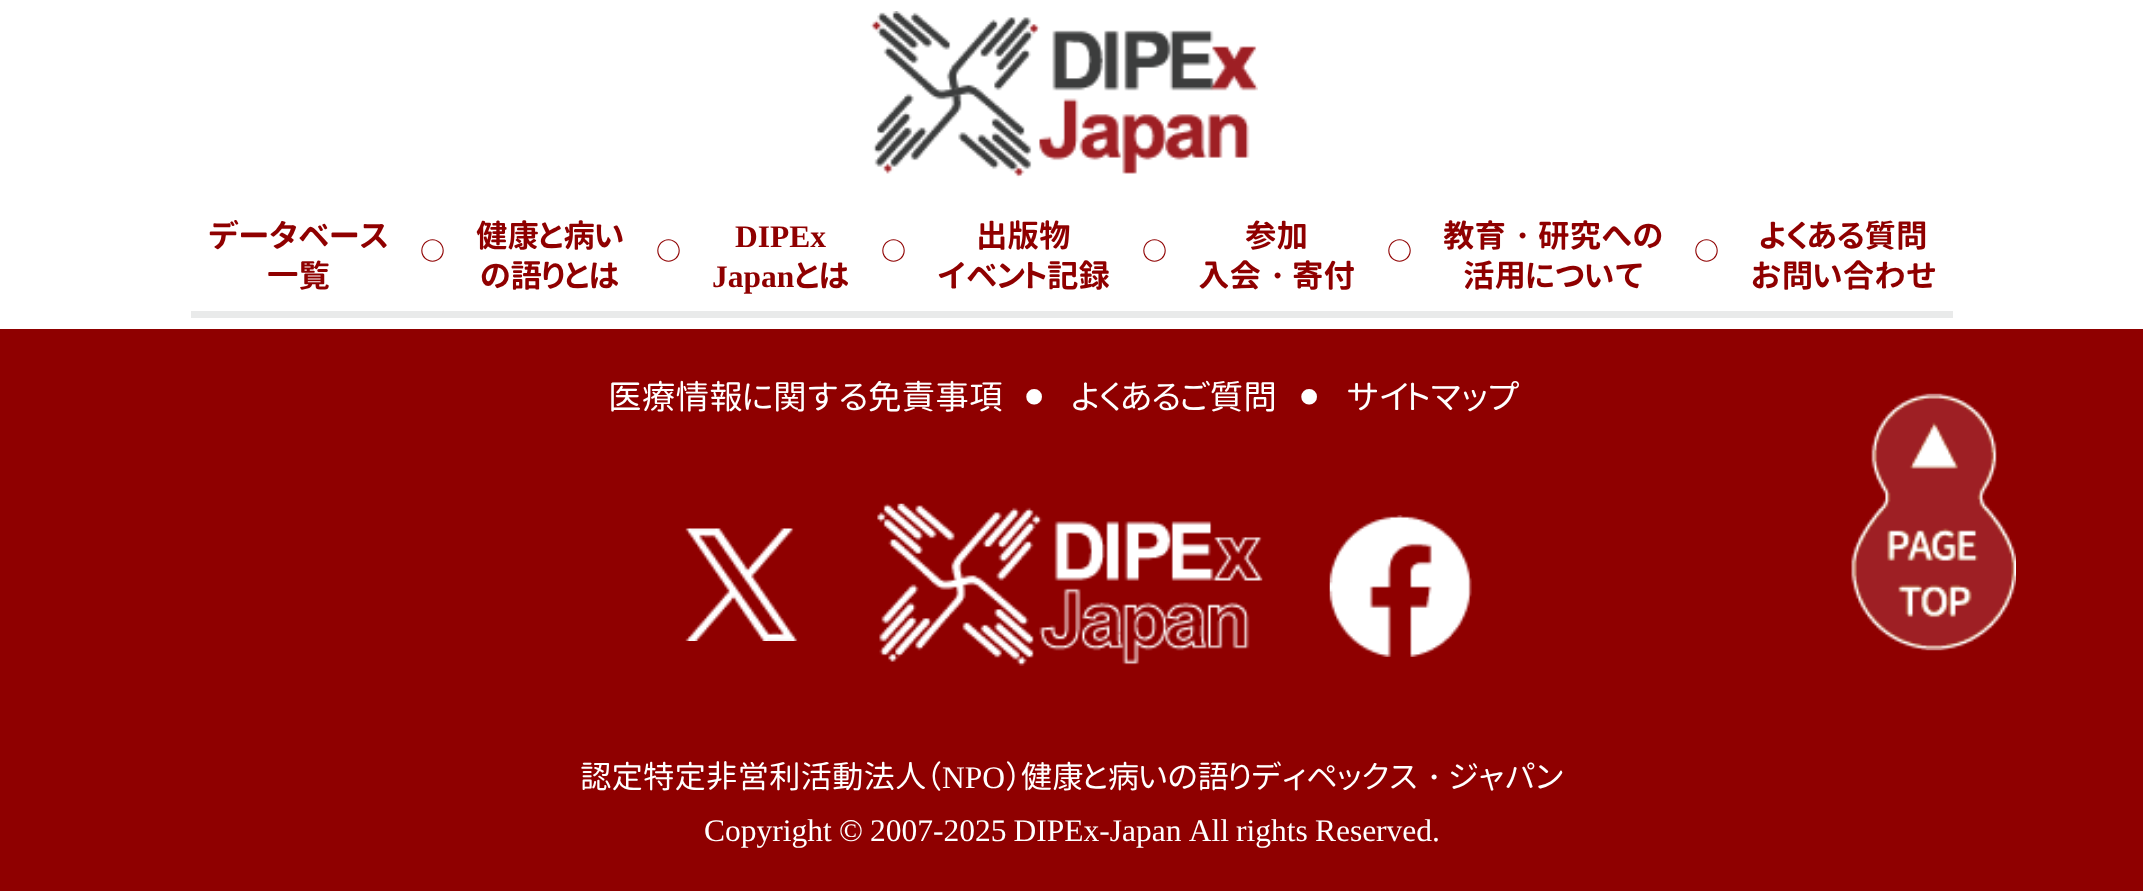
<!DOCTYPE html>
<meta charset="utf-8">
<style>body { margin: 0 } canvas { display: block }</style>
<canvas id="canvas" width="2143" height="891"></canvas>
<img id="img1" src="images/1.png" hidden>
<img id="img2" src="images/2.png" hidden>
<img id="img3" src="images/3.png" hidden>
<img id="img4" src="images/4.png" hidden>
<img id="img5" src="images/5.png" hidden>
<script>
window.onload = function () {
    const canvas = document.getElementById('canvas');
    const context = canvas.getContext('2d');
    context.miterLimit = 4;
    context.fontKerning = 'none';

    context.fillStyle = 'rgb(143, 0, 0)';
    context.fillRect(0, 0, 2143, 891);
    context.fillStyle = 'rgb(255, 255, 255)';
    context.fillRect(0, 0, 2143, 329);
    context.drawImage(document.getElementById('img1'), 870, 11, 388, 167);
    context.fillStyle = 'rgb(233, 234, 234)';
    context.fillRect(191, 311, 1762, 7);
    context.drawImage(document.getElementById('img2'), 685, 528, 113, 113);
    context.drawImage(document.getElementById('img3'), 877, 503, 386, 163);
    context.drawImage(document.getElementById('img4'), 1329, 515, 143, 142);
    context.drawImage(document.getElementById('img5'), 1851, 393, 165, 258);
    context.font = 'bold 31.5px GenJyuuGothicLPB';
    context.fillStyle = 'rgb(143, 0, 0)';
    context.fillText('データベース', 208, 247);
    context.fillText('一覧', 267, 287);
    context.font = 'bold 25px GenJyuuGothicLPB';
    context.fillText('○', 420, 260);
    context.font = 'bold 31.5px GenJyuuGothicLPB';
    context.fillText('健康と病い', 476, 247);
    context.fillText('の語りとは', 480, 287);
    context.font = 'bold 25px GenJyuuGothicLPB';
    context.fillText('○', 656, 260);
    context.font = 'bold 31.5px Liberation Serif';
    context.fillText('DIPEx', 735, 247);
    context.fillText('Japan', 712, 287);
    context.font = 'bold 31.5px GenJyuuGothicLPB';
    context.fillText('とは', 795, 287);
    context.font = 'bold 25px GenJyuuGothicLPB';
    context.fillText('○', 881, 260);
    context.font = 'bold 31.5px GenJyuuGothicLPB';
    context.fillText('出版物', 976, 247);
    context.fillText('イベント記録', 937, 287);
    context.font = 'bold 25px GenJyuuGothicLPB';
    context.fillText('○', 1142, 260);
    context.font = 'bold 31.5px GenJyuuGothicLPB';
    context.fillText('参加', 1245, 247);
    context.fillText('入会', 1198, 287);
    context.font = 'bold 31.5px WenQuanYi Zen Hei';
    context.fillText('・', 1261, 287);
    context.font = 'bold 31.5px GenJyuuGothicLPB';
    context.fillText('寄付', 1292, 287);
    context.font = 'bold 25px GenJyuuGothicLPB';
    context.fillText('○', 1387, 260);
    context.font = 'bold 31.5px GenJyuuGothicLPB';
    context.fillText('教育', 1443, 247);
    context.font = 'bold 31.5px WenQuanYi Zen Hei';
    context.fillText('・', 1506, 247);
    context.font = 'bold 31.5px GenJyuuGothicLPB';
    context.fillText('研究への', 1538, 247);
    context.fillText('活用について', 1463, 287);
    context.font = 'bold 25px GenJyuuGothicLPB';
    context.fillText('○', 1694, 260);
    context.font = 'bold 31.5px GenJyuuGothicLPB';
    context.fillText('よくある質問', 1759, 247);
    context.fillText('お問い合わせ', 1751, 287);
    context.font = '33.75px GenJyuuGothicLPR';
    context.fillStyle = 'rgb(255, 255, 255)';
    context.fillText('医療情報に関する免責事項', 608, 409);
    context.font = '33.75px DejaVu Sans';
    context.fillText('⚫︎', 1020, 409);
    context.font = '33.75px GenJyuuGothicLPR';
    context.fillText('よくあるご質問', 1071, 409);
    context.font = '33.75px DejaVu Sans';
    context.fillText('⚫︎', 1295, 409);
    context.font = '33.75px GenJyuuGothicLPR';
    context.fillText('サイトマップ', 1346, 409);
    context.font = '31.5px GenJyuuGothicLPR';
    context.fillText('認定特定非営利活動法人（', 580, 788);
    context.font = '31.5px Liberation Serif';
    context.fillText('NPO', 942, 788);
    context.font = '31.5px GenJyuuGothicLPR';
    context.fillText('）健康と病いの語りディペックス', 1005, 788);
    context.font = '500 31.5px WenQuanYi Zen Hei';
    context.fillText('・', 1418, 788);
    context.font = '31.5px GenJyuuGothicLPR';
    context.fillText('ジャパン', 1449, 788);
    context.wordSpacing = '-0.75px';
    context.font = '31.5px Liberation Serif';
    context.fillText('Copyright © 2007-2025 DIPEx-Japan All rights Reserved.', 704, 841);
};
</script>
